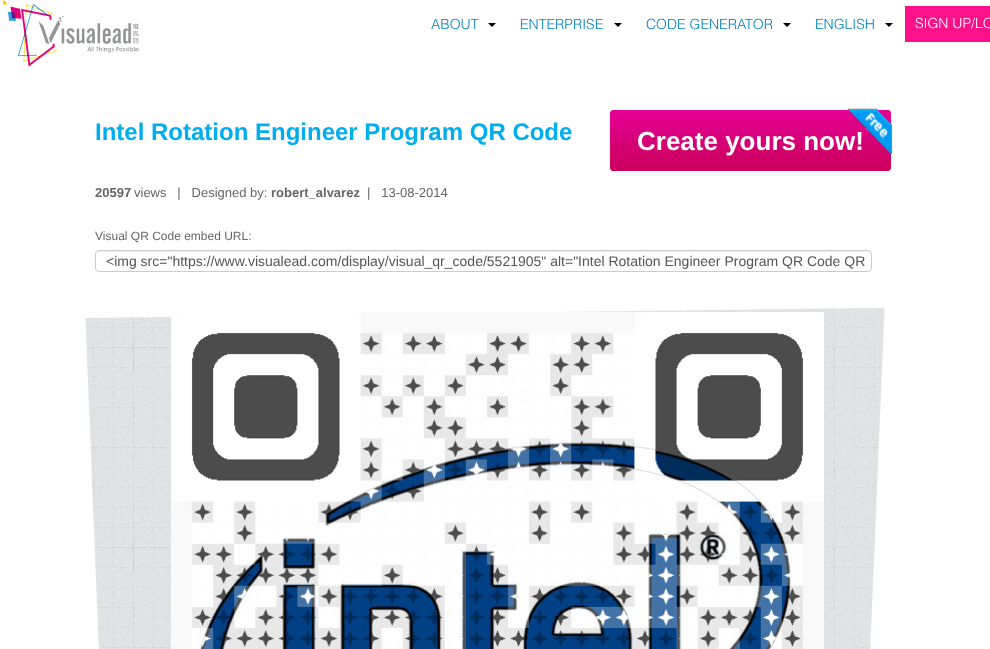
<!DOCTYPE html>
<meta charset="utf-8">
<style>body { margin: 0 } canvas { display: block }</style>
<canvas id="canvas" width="990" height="649"></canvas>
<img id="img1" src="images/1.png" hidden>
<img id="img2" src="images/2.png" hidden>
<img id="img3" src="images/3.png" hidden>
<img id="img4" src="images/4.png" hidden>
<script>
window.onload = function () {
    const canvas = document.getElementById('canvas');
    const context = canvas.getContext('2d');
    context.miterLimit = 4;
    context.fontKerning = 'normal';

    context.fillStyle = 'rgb(255, 255, 255)';
    context.fillRect(0, 0, 990, 649);
    context.drawImage(document.getElementById('img1'), 2, 0, 137, 67);
    context.fillStyle = 'rgb(0, 0, 0)';
    context.beginPath();
    context.moveTo(488, 23);
    context.lineTo(496, 23);
    context.lineTo(492, 27);
    context.closePath();
    context.fill();
    context.beginPath();
    context.moveTo(614, 23);
    context.lineTo(622, 23);
    context.lineTo(618, 27);
    context.closePath();
    context.fill();
    context.beginPath();
    context.moveTo(783, 23);
    context.lineTo(791, 23);
    context.lineTo(787, 27);
    context.closePath();
    context.fill();
    context.beginPath();
    context.moveTo(885, 23);
    context.lineTo(893, 23);
    context.lineTo(889, 27);
    context.closePath();
    context.fill();
    context.fillStyle = 'rgb(254, 17, 136)';
    context.fillRect(905, 6, 85, 36);
    context.drawImage(document.getElementById('img2'), 610, 108, 282, 63);
    context.fillStyle = 'rgb(236, 236, 236)';
    context.beginPath();
    context.moveTo(99, 252);
    context.lineTo(868, 252);
    context.bezierCurveTo(870, 252, 871, 253, 871, 255);
    context.bezierCurveTo(871, 253, 870, 251, 868, 251);
    context.lineTo(99, 251);
    context.bezierCurveTo(97, 251, 96, 253, 96, 255);
    context.bezierCurveTo(96, 253, 97, 252, 99, 252);
    context.closePath();
    context.fill();
    context.beginPath();
    context.roundRect(95.5, 250.5, 776, 21, 3.5);
    context.strokeStyle = 'rgb(204, 204, 204)';
    context.stroke();
    context.drawImage(document.getElementById('img3'), 85, 307, 800, 342);
    context.drawImage(document.getElementById('img4'), 171, 312, 653, 337);
    context.font = '300 14px Helvetica';
    context.fillStyle = 'rgb(0, 128, 192)';
    context.fillText('ABOUT', 431, 29);
    context.fillText('ENTERPRISE', 520, 29);
    context.fillText('CODE GENERATOR', 646, 29);
    context.fillText('ENGLISH', 815, 29);
    context.fillStyle = 'rgb(255, 255, 255)';
    context.fillText('SIGN UP/LO', 915, 28);
    context.font = 'bold 24px Liberation Sans';
    context.fillStyle = 'rgb(0, 173, 238)';
    context.fillText('Intel Rotation Engineer Program QR Code', 95, 140);
    context.font = 'bold 26px Liberation Sans';
    context.fillStyle = 'rgb(255, 255, 255)';
    context.fillText('Create yours now!', 637, 150);
    context.font = 'bold 13px Liberation Sans';
    context.fillStyle = 'rgb(102, 102, 102)';
    context.fillText('20597', 95, 197);
    context.font = '13px Liberation Sans';
    context.fillText('views   |   Designed by:', 134, 197);
    context.font = 'bold 13px Liberation Sans';
    context.fillText('robert_alvarez', 271, 197);
    context.font = '13px Liberation Sans';
    context.fillText('|   13-08-2014', 367, 197);
    context.font = '12px Liberation Sans';
    context.fillText('Visual QR Code embed URL:', 95, 240);
    context.font = '14px Liberation Sans';
    context.fillStyle = 'rgb(85, 85, 85)';
    context.fillText('<img src="https://www.visualead.com/display/visual_qr_code/5521905" alt="Intel Rotation Engineer Program QR Code QR', 106, 266);
};
</script>
